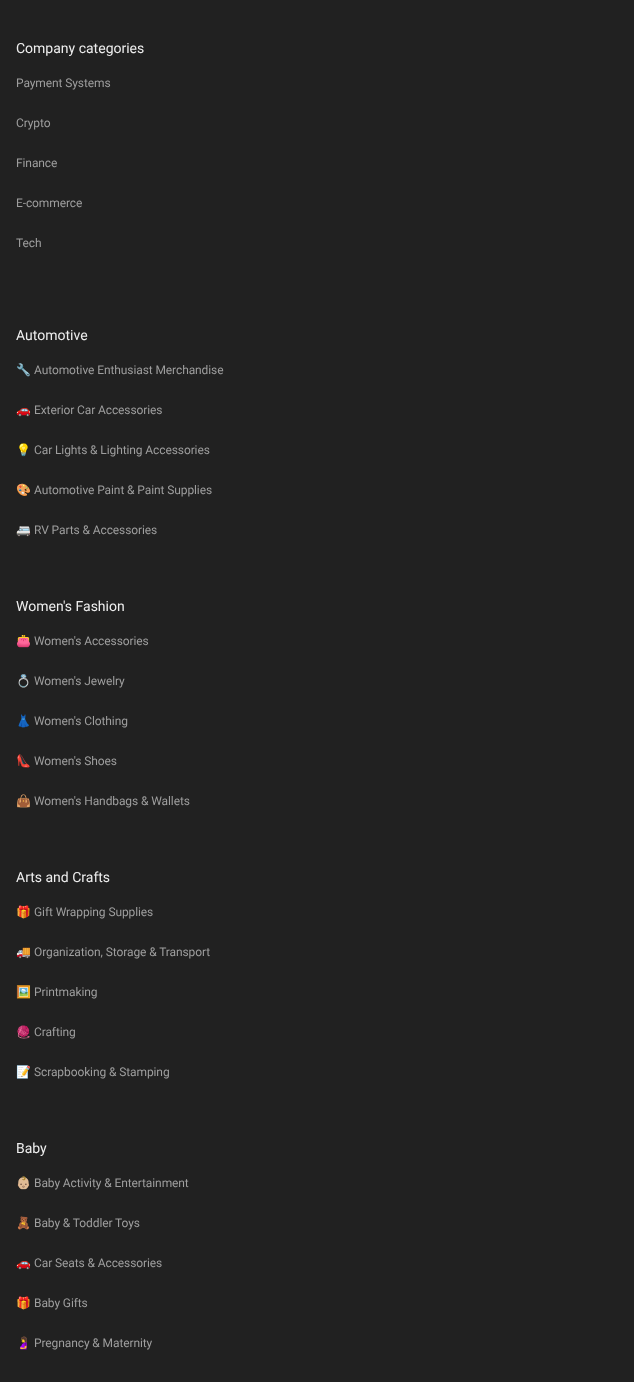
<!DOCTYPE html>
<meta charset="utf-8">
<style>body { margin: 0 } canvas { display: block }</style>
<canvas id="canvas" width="634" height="1382"></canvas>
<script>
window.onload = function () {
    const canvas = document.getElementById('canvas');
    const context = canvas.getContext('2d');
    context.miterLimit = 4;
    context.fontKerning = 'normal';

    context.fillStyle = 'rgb(33, 33, 33)';
    context.fillRect(0, 0, 634, 1382);
    context.font = '14px Roboto';
    context.fillStyle = 'rgb(238, 238, 238)';
    context.fillText('Company categories', 16, 53);
    context.letterSpacing = '-0.1px';
    context.font = '12px Roboto';
    context.fillStyle = 'rgb(158, 158, 158)';
    context.fillText('Payment Systems', 16, 87);
    context.fillText('Crypto', 16, 127);
    context.fillText('Finance', 16, 167);
    context.fillText('E-commerce', 16, 207);
    context.fillText('Tech', 16, 247);
    context.letterSpacing = '0px';
    context.font = '14px Roboto';
    context.fillStyle = 'rgb(238, 238, 238)';
    context.fillText('Automotive', 16, 340);
    context.letterSpacing = '-0.1px';
    context.font = '12px Noto Color Emoji';
    context.fillStyle = 'rgb(158, 158, 158)';
    context.fillText('🔧', 16, 374);
    context.font = '12px Roboto';
    context.fillText('Automotive Enthusiast Merchandise', 34, 374);
    context.font = '12px Noto Color Emoji';
    context.fillText('🚗', 16, 414);
    context.font = '12px Roboto';
    context.fillText('Exterior Car Accessories', 34, 414);
    context.font = '12px Noto Color Emoji';
    context.fillText('💡', 16, 454);
    context.font = '12px Roboto';
    context.fillText('Car Lights & Lighting Accessories', 34, 454);
    context.font = '12px Noto Color Emoji';
    context.fillText('🎨', 16, 494);
    context.font = '12px Roboto';
    context.fillText('Automotive Paint & Paint Supplies', 34, 494);
    context.font = '12px Noto Color Emoji';
    context.fillText('🚐', 16, 534);
    context.font = '12px Roboto';
    context.fillText('RV Parts & Accessories', 34, 534);
    context.letterSpacing = '0px';
    context.font = '14px Roboto';
    context.fillStyle = 'rgb(238, 238, 238)';
    context.fillText('Women\'s Fashion', 16, 611);
    context.letterSpacing = '-0.1px';
    context.font = '12px Noto Color Emoji';
    context.fillStyle = 'rgb(158, 158, 158)';
    context.fillText('👛', 16, 645);
    context.font = '12px Roboto';
    context.fillText('Women\'s Accessories', 34, 645);
    context.font = '12px Noto Color Emoji';
    context.fillText('💍', 16, 685);
    context.font = '12px Roboto';
    context.fillText('Women\'s Jewelry', 34, 685);
    context.font = '12px Noto Color Emoji';
    context.fillText('👗', 16, 725);
    context.font = '12px Roboto';
    context.fillText('Women\'s Clothing', 34, 725);
    context.font = '12px Noto Color Emoji';
    context.fillText('👠', 16, 765);
    context.font = '12px Roboto';
    context.fillText('Women\'s Shoes', 34, 765);
    context.font = '12px Noto Color Emoji';
    context.fillText('👜', 16, 805);
    context.font = '12px Roboto';
    context.fillText('Women\'s Handbags & Wallets', 34, 805);
    context.letterSpacing = '0px';
    context.font = '14px Roboto';
    context.fillStyle = 'rgb(238, 238, 238)';
    context.fillText('Arts and Crafts', 16, 882);
    context.letterSpacing = '-0.1px';
    context.font = '12px Noto Color Emoji';
    context.fillStyle = 'rgb(158, 158, 158)';
    context.fillText('🎁', 16, 916);
    context.font = '12px Roboto';
    context.fillText('Gift Wrapping Supplies', 34, 916);
    context.font = '12px Noto Color Emoji';
    context.fillText('🚚', 16, 956);
    context.font = '12px Roboto';
    context.fillText('Organization, Storage & Transport', 34, 956);
    context.font = '12px Noto Color Emoji';
    context.fillText('🖼️', 16, 996);
    context.font = '12px Roboto';
    context.fillText('Printmaking', 34, 996);
    context.font = '12px Noto Color Emoji';
    context.fillText('🧶', 16, 1036);
    context.font = '12px Roboto';
    context.fillText('Crafting', 34, 1036);
    context.font = '12px Noto Color Emoji';
    context.fillText('📝', 16, 1076);
    context.font = '12px Roboto';
    context.fillText('Scrapbooking & Stamping', 34, 1076);
    context.letterSpacing = '0px';
    context.font = '14px Roboto';
    context.fillStyle = 'rgb(238, 238, 238)';
    context.fillText('Baby', 16, 1153);
    context.letterSpacing = '-0.1px';
    context.font = '12px Noto Color Emoji';
    context.fillStyle = 'rgb(158, 158, 158)';
    context.fillText('👶🏼', 16, 1187);
    context.font = '12px Roboto';
    context.fillText('Baby Activity & Entertainment', 34, 1187);
    context.font = '12px Noto Color Emoji';
    context.fillText('🧸', 16, 1227);
    context.font = '12px Roboto';
    context.fillText('Baby & Toddler Toys', 34, 1227);
    context.font = '12px Noto Color Emoji';
    context.fillText('🚗', 16, 1267);
    context.font = '12px Roboto';
    context.fillText('Car Seats & Accessories', 34, 1267);
    context.font = '12px Noto Color Emoji';
    context.fillText('🎁', 16, 1307);
    context.font = '12px Roboto';
    context.fillText('Baby Gifts', 34, 1307);
    context.font = '12px Noto Color Emoji';
    context.fillText('🤰', 16, 1347);
    context.font = '12px Roboto';
    context.fillText('Pregnancy & Maternity', 34, 1347);
};
</script>
